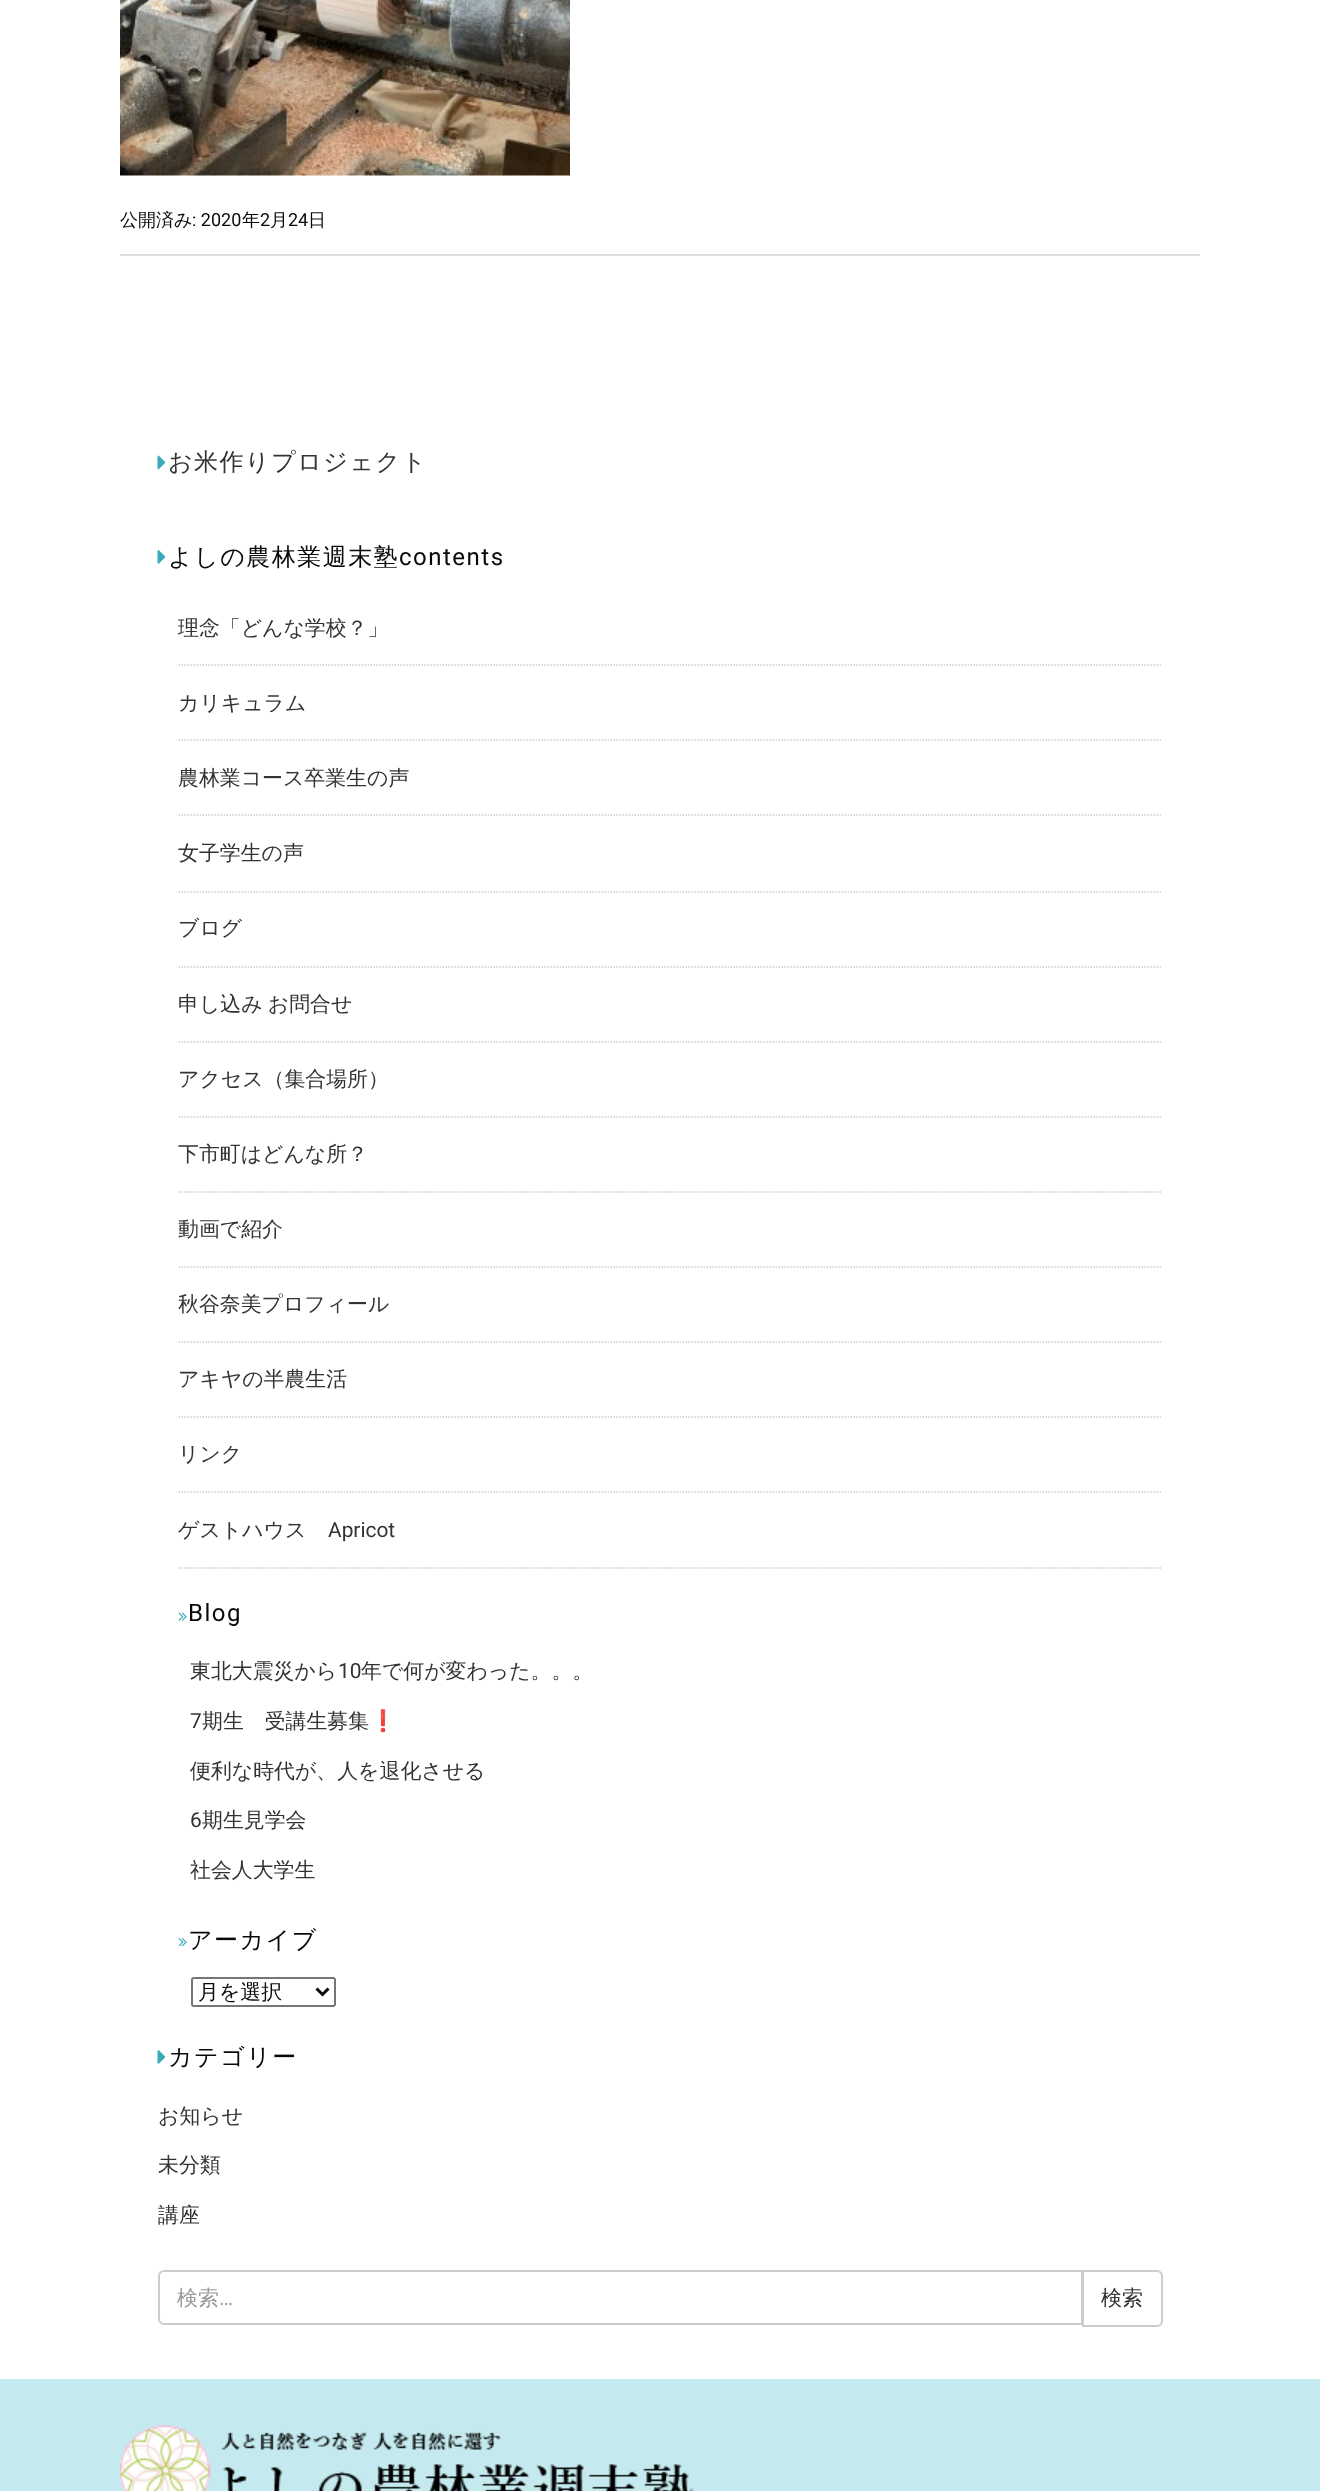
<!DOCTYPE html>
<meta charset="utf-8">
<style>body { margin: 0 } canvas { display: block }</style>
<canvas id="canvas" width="1320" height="2491"></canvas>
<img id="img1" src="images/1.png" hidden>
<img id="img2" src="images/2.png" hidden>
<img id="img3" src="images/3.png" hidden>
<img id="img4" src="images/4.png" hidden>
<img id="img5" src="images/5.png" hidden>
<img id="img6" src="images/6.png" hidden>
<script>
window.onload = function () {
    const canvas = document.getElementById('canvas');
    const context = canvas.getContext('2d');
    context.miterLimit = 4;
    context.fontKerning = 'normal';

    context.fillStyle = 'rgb(255, 255, 255)';
    context.fillRect(0, 0, 1320, 2491);
    context.drawImage(document.getElementById('img1'), 120, 0, 450, 176);
    context.fillStyle = 'rgb(221, 221, 221)';
    context.fillRect(120, 254, 1080, 2);
    context.drawImage(document.getElementById('img2'), 157, 455, 9, 15);
    context.drawImage(document.getElementById('img3'), 157, 550, 9, 14);
    context.beginPath();
    context.moveTo(178.5, 665);
    context.lineTo(1162.5, 665);
    context.strokeStyle = 'rgb(204, 204, 204)';
    context.lineWidth = 1.5;
    context.setLineDash([1.5, 1.5]);
    context.stroke();
    context.beginPath();
    context.moveTo(178.5, 740);
    context.lineTo(1162.5, 740);
    context.stroke();
    context.beginPath();
    context.moveTo(178.5, 815);
    context.lineTo(1162.5, 815);
    context.stroke();
    context.beginPath();
    context.moveTo(178.5, 892);
    context.lineTo(1162.5, 892);
    context.stroke();
    context.beginPath();
    context.moveTo(178.5, 967);
    context.lineTo(1162.5, 967);
    context.stroke();
    context.beginPath();
    context.moveTo(178.5, 1042);
    context.lineTo(1162.5, 1042);
    context.stroke();
    context.beginPath();
    context.moveTo(178.5, 1117);
    context.lineTo(1162.5, 1117);
    context.stroke();
    context.beginPath();
    context.moveTo(178.5, 1192);
    context.lineTo(1162.5, 1192);
    context.stroke();
    context.beginPath();
    context.moveTo(178.5, 1267);
    context.lineTo(1162.5, 1267);
    context.stroke();
    context.beginPath();
    context.moveTo(178.5, 1342);
    context.lineTo(1162.5, 1342);
    context.stroke();
    context.beginPath();
    context.moveTo(178.5, 1417);
    context.lineTo(1162.5, 1417);
    context.stroke();
    context.beginPath();
    context.moveTo(178.5, 1492);
    context.lineTo(1162.5, 1492);
    context.stroke();
    context.beginPath();
    context.moveTo(178.5, 1568);
    context.lineTo(1162.5, 1568);
    context.stroke();
    context.drawImage(document.getElementById('img4'), 178, 1612, 9, 9);
    context.drawImage(document.getElementById('img5'), 178, 1938, 9, 9);
    context.beginPath();
    context.roundRect(192, 1978, 143, 28, 2);
    context.strokeStyle = 'rgb(118, 118, 118)';
    context.lineWidth = 2;
    context.setLineDash([]);
    context.stroke();
    context.beginPath();
    context.moveTo(316.5, 1988.5);
    context.lineTo(322.5, 1994.5);
    context.lineTo(328.5, 1988.5);
    context.strokeStyle = 'rgb(9, 9, 9)';
    context.lineWidth = 3;
    context.stroke();
    context.drawImage(document.getElementById('img3'), 157, 2050, 9, 14);
    context.beginPath();
    context.roundRect(1083, 2271, 79, 55, [0, 5, 5, 0]);
    context.strokeStyle = 'rgb(204, 204, 204)';
    context.lineWidth = 2;
    context.stroke();
    context.fillStyle = 'rgb(255, 255, 255)';
    context.beginPath();
    context.roundRect(159, 2271, 923, 53, [5, 0, 0, 5]);
    context.fill();
    context.stroke();
    context.fillStyle = 'rgb(196, 233, 238)';
    context.fillRect(0, 2379, 1320, 112);
    context.drawImage(document.getElementById('img6'), 120, 2425, 574, 66);
    context.font = '500 18px WenQuanYi Zen Hei';
    context.fillStyle = 'rgb(9, 9, 9)';
    context.fillText('公開済み', 120, 226);
    context.font = '18px Roboto';
    context.fillText(': 2020', 192, 226);
    context.font = '500 18px WenQuanYi Zen Hei';
    context.fillText('年', 242, 226);
    context.font = '18px Roboto';
    context.fillText('2', 260, 226);
    context.font = '500 18px WenQuanYi Zen Hei';
    context.fillText('月', 270, 226);
    context.font = '18px Roboto';
    context.fillText('24', 288, 226);
    context.font = '500 18px WenQuanYi Zen Hei';
    context.fillText('日', 308, 226);
    context.letterSpacing = '1.5px';
    context.font = '500 24px WenQuanYi Zen Hei';
    context.fillStyle = 'rgb(51, 51, 51)';
    context.fillText('お米作りプロジェクト', 168, 470);
    context.fillStyle = 'rgb(9, 9, 9)';
    context.fillText('よしの農林業週末塾', 168, 565);
    context.font = '24px Roboto';
    context.fillText('contents', 399, 565);
    context.letterSpacing = '0px';
    context.font = '500 20.9px WenQuanYi Zen Hei';
    context.fillStyle = 'rgb(51, 51, 51)';
    context.fillText('理念「どんな学校？」', 178, 635);
    context.fillText('カリキュラム', 178, 710);
    context.fillText('農林業コース卒業生の声', 178, 785);
    context.fillText('女子学生の声', 178, 860);
    context.fillText('ブログ', 178, 935);
    context.wordSpacing = '-1px';
    context.fillText('申し込み お問合せ', 178, 1011);
    context.wordSpacing = '0px';
    context.fillText('アクセス（集合場所）', 178, 1086);
    context.fillText('下市町はどんな所？', 178, 1161);
    context.fillText('動画で紹介', 178, 1236);
    context.fillText('秋谷奈美プロフィール', 178, 1311);
    context.fillText('アキヤの半農生活', 178, 1386);
    context.fillText('リンク', 178, 1461);
    context.fillText('ゲストハウス', 178, 1537);
    context.font = '20.9px Roboto';
    context.fillText('Apricot', 328, 1537);
    context.letterSpacing = '1.5px';
    context.font = '24px Roboto';
    context.fillStyle = 'rgb(9, 9, 9)';
    context.fillText('Blog', 188, 1621);
    context.letterSpacing = '0px';
    context.font = '500 20.9px WenQuanYi Zen Hei';
    context.fillStyle = 'rgb(51, 51, 51)';
    context.fillText('東北大震災から', 190, 1678);
    context.font = '20.9px Roboto';
    context.fillText('10', 338, 1678);
    context.font = '500 20.9px WenQuanYi Zen Hei';
    context.fillText('年で何が変わった。。。', 361, 1678);
    context.font = '20.9px Roboto';
    context.fillText('7', 190, 1728);
    context.font = '500 20.9px WenQuanYi Zen Hei';
    context.fillText('期生　受講生募集', 202, 1728);
    context.font = '20.9px Noto Color Emoji';
    context.fillText('❗️', 370, 1728);
    context.font = '500 20.9px WenQuanYi Zen Hei';
    context.fillText('便利な時代が、人を退化させる', 190, 1778);
    context.font = '20.9px Roboto';
    context.fillText('6', 190, 1827);
    context.font = '500 20.9px WenQuanYi Zen Hei';
    context.fillText('期生見学会', 202, 1827);
    context.fillText('社会人大学生', 190, 1877);
    context.letterSpacing = '1.5px';
    context.font = '500 24px WenQuanYi Zen Hei';
    context.fillStyle = 'rgb(9, 9, 9)';
    context.fillText('アーカイブ', 188, 1948);
    context.letterSpacing = '0px';
    context.font = '500 20.9px WenQuanYi Zen Hei';
    context.fillText('月を選択', 198, 1999);
    context.letterSpacing = '1.5px';
    context.font = '500 24px WenQuanYi Zen Hei';
    context.fillText('カテゴリー', 168, 2065);
    context.letterSpacing = '0px';
    context.font = '500 20.9px WenQuanYi Zen Hei';
    context.fillStyle = 'rgb(51, 51, 51)';
    context.fillText('お知らせ', 158, 2123);
    context.fillText('未分類', 158, 2172);
    context.fillText('講座', 158, 2222);
    context.font = '500 21px WenQuanYi Zen Hei';
    context.fillStyle = 'rgb(153, 153, 153)';
    context.fillText('検索', 177, 2305);
    context.font = '21px Roboto';
    context.fillText('…', 219, 2305);
    context.font = '500 21px WenQuanYi Zen Hei';
    context.fillStyle = 'rgb(51, 51, 51)';
    context.fillText('検索', 1101, 2305);
};
</script>
